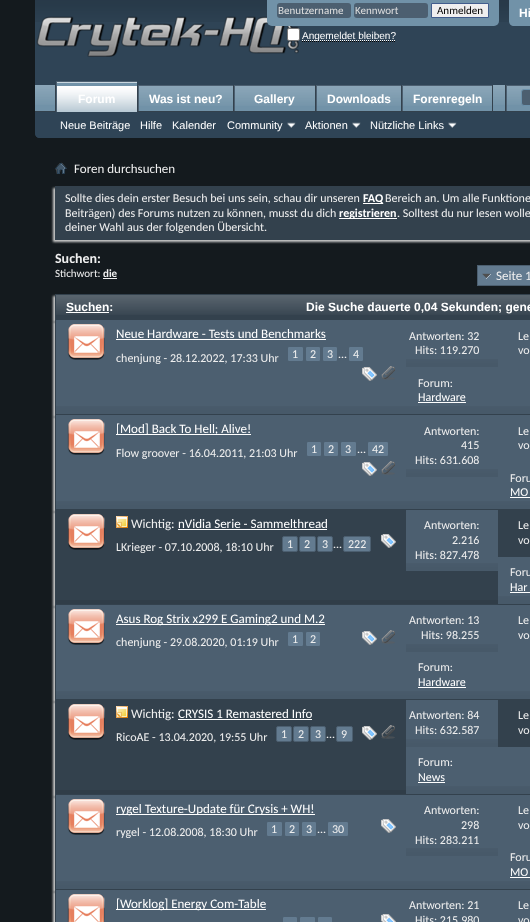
<!DOCTYPE html>
<meta charset="utf-8">
<style>body { margin: 0 } canvas { display: block }</style>
<canvas id="canvas" width="530" height="922"></canvas>
<img id="img1" src="images/1.png" hidden>
<img id="img2" src="images/2.png" hidden>
<img id="img3" src="images/3.png" hidden>
<img id="img4" src="images/4.png" hidden>
<img id="img5" src="images/5.png" hidden>
<img id="img6" src="images/6.png" hidden>
<img id="img7" src="images/7.png" hidden>
<img id="img8" src="images/8.png" hidden>
<img id="img9" src="images/9.png" hidden>
<img id="img10" src="images/10.png" hidden>
<img id="img11" src="images/11.png" hidden>
<img id="img12" src="images/12.png" hidden>
<img id="img13" src="images/13.png" hidden>
<img id="img14" src="images/14.png" hidden>
<img id="img15" src="images/15.png" hidden>
<img id="img16" src="images/16.png" hidden>
<img id="img17" src="images/17.png" hidden>
<img id="img18" src="images/18.png" hidden>
<img id="img19" src="images/19.png" hidden>
<img id="img20" src="images/20.png" hidden>
<img id="img21" src="images/21.png" hidden>
<img id="img22" src="images/22.png" hidden>
<img id="img23" src="images/23.png" hidden>
<img id="img24" src="images/24.png" hidden>
<img id="img25" src="images/25.png" hidden>
<img id="img26" src="images/26.png" hidden>
<script>
window.onload = function () {
    const canvas = document.getElementById('canvas');
    const context = canvas.getContext('2d');
    context.miterLimit = 4;
    context.fontKerning = 'normal';

    context.fillStyle = 'rgb(20, 26, 30)';
    context.fillRect(0, 0, 530, 922);
    context.fillStyle = 'rgb(47, 68, 86)';
    context.beginPath();
    context.moveTo(35, 0);
    context.lineTo(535, 0);
    context.lineTo(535, 133);
    context.bezierCurveTo(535, 136, 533, 138, 530, 138);
    context.lineTo(40, 138);
    context.bezierCurveTo(37, 138, 35, 136, 35, 133);
    context.closePath();
    context.fill();
    context.drawImage(document.getElementById('img1'), 35, 0, 475, 22);
    context.drawImage(document.getElementById('img2'), 36, 16, 263, 41);
    context.fillStyle = 'rgb(113, 146, 168)';
    context.beginPath();
    context.roundRect(267, 0, 232, 26, [0, 0, 5, 5]);
    context.fill();
    context.fillStyle = 'rgb(76, 95, 112)';
    context.beginPath();
    context.roundRect(277, 3, 74, 15, 3);
    context.fill();
    context.beginPath();
    context.roundRect(354, 3, 74, 15, 3);
    context.fill();
    context.fillStyle = 'rgb(239, 239, 239)';
    context.beginPath();
    context.rect(431.5, 3.5, 57, 14);
    context.fill();
    context.strokeStyle = 'rgb(65, 93, 141)';
    context.stroke();
    context.fillStyle = 'rgb(255, 255, 255)';
    context.beginPath();
    context.roundRect(287.5, 28.5, 12, 12, 1.5);
    context.fill();
    context.strokeStyle = 'rgb(118, 118, 118)';
    context.stroke();
    context.beginPath();
    context.moveTo(302, 41.5);
    context.lineTo(396, 41.5);
    context.strokeStyle = 'rgb(0, 0, 0)';
    context.setLineDash([1, 1]);
    context.stroke();
    context.beginPath();
    context.moveTo(302, 40.5);
    context.lineTo(396, 40.5);
    context.strokeStyle = 'rgb(255, 255, 255)';
    context.stroke();
    context.fillStyle = 'rgb(113, 146, 168)';
    context.beginPath();
    context.moveTo(509, 0);
    context.lineTo(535, 0);
    context.lineTo(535, 21);
    context.bezierCurveTo(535, 24, 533, 26, 530, 26);
    context.lineTo(514, 26);
    context.bezierCurveTo(511, 26, 509, 24, 509, 21);
    context.closePath();
    context.fill();
    context.fillStyle = 'rgb(47, 68, 86)';
    context.beginPath();
    context.moveTo(35, 85);
    context.lineTo(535, 85);
    context.lineTo(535, 133);
    context.bezierCurveTo(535, 136, 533, 138, 530, 138);
    context.lineTo(40, 138);
    context.bezierCurveTo(37, 138, 35, 136, 35, 133);
    context.closePath();
    context.fill();
    context.fillStyle = 'rgb(113, 146, 168)';
    context.fillRect(35, 85, 495, 26);
    context.drawImage(document.getElementById('img3'), 35, 85, 495, 20);
    context.fillStyle = 'rgb(51, 65, 77)';
    context.fillRect(137, 85, 1, 26);
    context.fillRect(55, 85, 1, 26);
    context.fillRect(233, 85, 1, 27);
    context.fillStyle = 'rgb(76, 95, 112)';
    context.fillRect(138, 85, 95, 1);
    context.fillRect(138, 85, 1, 27);
    context.fillStyle = 'rgb(51, 65, 77)';
    context.fillRect(315, 85, 1, 27);
    context.fillStyle = 'rgb(76, 95, 112)';
    context.fillRect(234, 85, 81, 1);
    context.fillRect(234, 85, 1, 27);
    context.fillStyle = 'rgb(51, 65, 77)';
    context.fillRect(401, 85, 1, 27);
    context.fillStyle = 'rgb(76, 95, 112)';
    context.fillRect(316, 85, 85, 1);
    context.fillRect(316, 85, 1, 27);
    context.fillStyle = 'rgb(51, 65, 77)';
    context.fillRect(492, 85, 1, 27);
    context.fillStyle = 'rgb(76, 95, 112)';
    context.fillRect(402, 85, 90, 1);
    context.fillRect(402, 85, 1, 27);
    context.fillStyle = 'rgb(51, 65, 77)';
    context.fillRect(35, 111, 495, 1);
    context.fillStyle = 'rgb(113, 146, 168)';
    context.fillRect(57, 82, 80, 30);
    context.drawImage(document.getElementById('img4'), 57, 82, 80, 30);
    context.fillStyle = 'rgb(76, 95, 112)';
    context.fillRect(56, 81, 81, 1);
    context.fillRect(56, 81, 1, 31);
    context.fillStyle = 'rgb(113, 146, 168)';
    context.fillRect(139, 86, 94, 19);
    context.drawImage(document.getElementById('img5'), 139, 86, 94, 20);
    context.fillRect(235, 86, 80, 19);
    context.drawImage(document.getElementById('img6'), 235, 86, 80, 20);
    context.fillRect(317, 86, 84, 19);
    context.drawImage(document.getElementById('img7'), 317, 86, 84, 20);
    context.fillRect(403, 86, 89, 19);
    context.drawImage(document.getElementById('img8'), 403, 86, 89, 20);
    context.drawImage(document.getElementById('img9'), 287, 122, 9, 6);
    context.drawImage(document.getElementById('img9'), 352, 122, 9, 6);
    context.drawImage(document.getElementById('img9'), 448, 122, 9, 6);
    context.fillStyle = 'rgb(51, 65, 77)';
    context.fillRect(505, 85, 1, 26);
    context.fillStyle = 'rgb(76, 95, 112)';
    context.fillRect(506, 85, 24, 1);
    context.fillRect(506, 85, 1, 26);
    context.beginPath();
    context.roundRect(521.5, 89.5, 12, 16, 2.5);
    context.fill();
    context.strokeStyle = 'rgb(107, 145, 171)';
    context.setLineDash([]);
    context.stroke();
    context.drawImage(document.getElementById('img10'), 55, 162, 12, 12);
    context.fillStyle = 'rgb(200, 200, 200)';
    context.filter = 'blur(1px)';
    context.beginPath();
    context.rect(53, 188, 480, 54);
    context.fill();
    context.filter = 'none';
    context.fillStyle = 'rgb(51, 65, 77)';
    context.fillRect(55, 186, 475, 54);
    context.fillStyle = 'rgb(255, 255, 255)';
    context.fillRect(363, 203, 20, 1);
    context.fillRect(339, 218, 58, 1);
    context.fillStyle = 'rgb(239, 239, 239)';
    context.fillRect(103, 278, 14, 1);
    context.fillStyle = 'rgb(99, 123, 144)';
    context.fillRect(478, 266, 52, 19);
    context.drawImage(document.getElementById('img11'), 482, 273, 9, 6);
    context.strokeStyle = 'rgb(76, 95, 112)';
    context.strokeRect(477.5, 265.5, 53, 20);
    context.fillStyle = 'rgb(200, 200, 200)';
    context.filter = 'blur(1px)';
    context.beginPath();
    context.rect(53, 296, 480, 26);
    context.fill();
    context.filter = 'none';
    context.fillStyle = 'rgb(51, 65, 77)';
    context.fillRect(56, 295, 474, 24);
    context.drawImage(document.getElementById('img12'), 56, 295, 474, 20);
    context.strokeStyle = 'rgb(51, 65, 77)';
    context.strokeRect(55.5, 294.5, 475, 25);
    context.fillStyle = 'rgb(255, 255, 255)';
    context.fillRect(66, 312, 43, 1);
    context.fillStyle = 'rgb(200, 200, 200)';
    context.filter = 'blur(1px)';
    context.beginPath();
    context.rect(53, 322, 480, 95);
    context.fill();
    context.filter = 'none';
    context.fillStyle = 'rgb(76, 95, 112)';
    context.fillRect(56, 320, 474, 94);
    context.drawImage(document.getElementById('img13'), 56, 406, 350, 8);
    context.fillStyle = 'rgb(51, 65, 77)';
    context.fillRect(55, 414, 475, 1);
    context.fillRect(55, 320, 1, 95);
    context.drawImage(document.getElementById('img14'), 67, 324, 38, 36);
    context.fillStyle = 'rgb(255, 255, 255)';
    context.fillRect(116, 339, 210, 1);
    context.fillStyle = 'rgb(99, 123, 144)';
    context.beginPath();
    context.roundRect(287.5, 346.5, 16, 15, 1.5);
    context.fill();
    context.strokeStyle = 'rgb(76, 95, 112)';
    context.stroke();
    context.beginPath();
    context.roundRect(305.5, 346.5, 15, 15, 1.5);
    context.fill();
    context.stroke();
    context.beginPath();
    context.roundRect(322.5, 346.5, 15, 15, 1.5);
    context.fill();
    context.stroke();
    context.beginPath();
    context.roundRect(348.5, 346.5, 15, 15, 1.5);
    context.fill();
    context.stroke();
    context.drawImage(document.getElementById('img15'), 362, 367, 15, 14);
    context.drawImage(document.getElementById('img16'), 381, 366, 14, 14);
    context.drawImage(document.getElementById('img17'), 406, 359, 92, 8);
    context.drawImage(document.getElementById('img18'), 406, 406, 124, 8);
    context.fillStyle = 'rgb(255, 255, 255)';
    context.fillRect(418, 402, 48, 1);
    context.fillStyle = 'rgb(200, 200, 200)';
    context.filter = 'blur(1px)';
    context.beginPath();
    context.rect(53, 417, 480, 95);
    context.fill();
    context.filter = 'none';
    context.fillStyle = 'rgb(76, 95, 112)';
    context.fillRect(56, 415, 474, 94);
    context.drawImage(document.getElementById('img19'), 56, 501, 442, 8);
    context.fillStyle = 'rgb(51, 65, 77)';
    context.fillRect(55, 509, 475, 1);
    context.fillRect(55, 415, 1, 95);
    context.drawImage(document.getElementById('img14'), 67, 419, 38, 36);
    context.fillStyle = 'rgb(255, 255, 255)';
    context.fillRect(116, 434, 135, 1);
    context.fillStyle = 'rgb(99, 123, 144)';
    context.beginPath();
    context.roundRect(306.5, 441.5, 15, 15, 1.5);
    context.fill();
    context.stroke();
    context.beginPath();
    context.roundRect(323.5, 441.5, 15, 15, 1.5);
    context.fill();
    context.stroke();
    context.beginPath();
    context.roundRect(340.5, 441.5, 16, 15, 1.5);
    context.fill();
    context.stroke();
    context.beginPath();
    context.roundRect(367.5, 441.5, 21, 15, 1.5);
    context.fill();
    context.stroke();
    context.drawImage(document.getElementById('img15'), 362, 462, 15, 14);
    context.drawImage(document.getElementById('img16'), 381, 461, 14, 14);
    context.drawImage(document.getElementById('img17'), 406, 469, 92, 8);
    context.drawImage(document.getElementById('img20'), 498, 501, 32, 8);
    context.fillStyle = 'rgb(255, 255, 255)';
    context.fillRect(510, 497, 20, 1);
    context.fillStyle = 'rgb(200, 200, 200)';
    context.filter = 'blur(1px)';
    context.beginPath();
    context.rect(53, 512, 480, 95);
    context.fill();
    context.filter = 'none';
    context.fillStyle = 'rgb(51, 65, 77)';
    context.fillRect(56, 510, 474, 95);
    context.fillStyle = 'rgb(48, 61, 72)';
    context.fillRect(55, 600, 443, 4);
    context.fillStyle = 'rgb(51, 65, 77)';
    context.fillRect(55, 510, 1, 95);
    context.drawImage(document.getElementById('img21'), 68, 514, 37, 36);
    context.drawImage(document.getElementById('img22'), 116, 516, 12, 12);
    context.fillStyle = 'rgb(255, 255, 255)';
    context.fillRect(178, 529, 149, 1);
    context.fillStyle = 'rgb(99, 123, 144)';
    context.beginPath();
    context.roundRect(282.5, 536.5, 15, 15, 1.5);
    context.fill();
    context.stroke();
    context.beginPath();
    context.roundRect(299.5, 536.5, 16, 15, 1.5);
    context.fill();
    context.stroke();
    context.beginPath();
    context.roundRect(317.5, 536.5, 15, 15, 1.5);
    context.fill();
    context.stroke();
    context.beginPath();
    context.roundRect(343.5, 536.5, 27, 15, 1.5);
    context.fill();
    context.stroke();
    context.drawImage(document.getElementById('img23'), 381, 534, 15, 14);
    context.fillStyle = 'rgb(76, 95, 112)';
    context.fillRect(406, 510, 92, 61);
    context.drawImage(document.getElementById('img17'), 406, 563, 92, 8);
    context.fillRect(498, 557, 32, 47);
    context.drawImage(document.getElementById('img20'), 498, 596, 32, 8);
    context.fillStyle = 'rgb(255, 255, 255)';
    context.fillRect(510, 592, 20, 1);
    context.fillStyle = 'rgb(200, 200, 200)';
    context.filter = 'blur(1px)';
    context.beginPath();
    context.rect(53, 607, 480, 95);
    context.fill();
    context.filter = 'none';
    context.fillStyle = 'rgb(76, 95, 112)';
    context.fillRect(56, 605, 474, 94);
    context.drawImage(document.getElementById('img13'), 56, 691, 350, 8);
    context.fillStyle = 'rgb(51, 65, 77)';
    context.fillRect(55, 699, 475, 1);
    context.fillRect(55, 605, 1, 95);
    context.drawImage(document.getElementById('img14'), 67, 609, 38, 36);
    context.fillStyle = 'rgb(255, 255, 255)';
    context.fillRect(116, 624, 209, 1);
    context.fillStyle = 'rgb(99, 123, 144)';
    context.beginPath();
    context.roundRect(287.5, 631.5, 16, 15, 1.5);
    context.fill();
    context.stroke();
    context.beginPath();
    context.roundRect(305.5, 631.5, 15, 15, 1.5);
    context.fill();
    context.stroke();
    context.drawImage(document.getElementById('img15'), 362, 631, 15, 14);
    context.drawImage(document.getElementById('img16'), 381, 630, 14, 14);
    context.drawImage(document.getElementById('img17'), 406, 644, 92, 8);
    context.drawImage(document.getElementById('img18'), 406, 691, 124, 8);
    context.fillStyle = 'rgb(255, 255, 255)';
    context.fillRect(418, 687, 48, 1);
    context.fillStyle = 'rgb(200, 200, 200)';
    context.filter = 'blur(1px)';
    context.beginPath();
    context.rect(53, 702, 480, 95);
    context.fill();
    context.filter = 'none';
    context.fillStyle = 'rgb(51, 65, 77)';
    context.fillRect(56, 700, 474, 95);
    context.fillStyle = 'rgb(48, 61, 72)';
    context.fillRect(55, 790, 351, 4);
    context.fillStyle = 'rgb(51, 65, 77)';
    context.fillRect(55, 700, 1, 95);
    context.drawImage(document.getElementById('img21'), 68, 704, 37, 36);
    context.drawImage(document.getElementById('img22'), 116, 706, 12, 12);
    context.fillStyle = 'rgb(255, 255, 255)';
    context.fillRect(178, 719, 134, 1);
    context.fillStyle = 'rgb(99, 123, 144)';
    context.beginPath();
    context.roundRect(276.5, 726.5, 15, 15, 1.5);
    context.fill();
    context.stroke();
    context.beginPath();
    context.roundRect(293.5, 726.5, 15, 15, 1.5);
    context.fill();
    context.stroke();
    context.beginPath();
    context.roundRect(310.5, 726.5, 15, 15, 1.5);
    context.fill();
    context.stroke();
    context.beginPath();
    context.roundRect(336.5, 726.5, 16, 15, 1.5);
    context.fill();
    context.stroke();
    context.drawImage(document.getElementById('img23'), 362, 726, 15, 14);
    context.drawImage(document.getElementById('img24'), 381, 725, 14, 14);
    context.fillStyle = 'rgb(76, 95, 112)';
    context.fillRect(406, 700, 92, 47);
    context.drawImage(document.getElementById('img17'), 406, 739, 92, 8);
    context.fillRect(406, 747, 124, 47);
    context.drawImage(document.getElementById('img18'), 406, 786, 124, 8);
    context.fillStyle = 'rgb(255, 255, 255)';
    context.fillRect(418, 782, 27, 1);
    context.fillStyle = 'rgb(200, 200, 200)';
    context.filter = 'blur(1px)';
    context.beginPath();
    context.rect(53, 797, 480, 95);
    context.fill();
    context.filter = 'none';
    context.fillStyle = 'rgb(76, 95, 112)';
    context.fillRect(56, 795, 474, 94);
    context.drawImage(document.getElementById('img19'), 56, 881, 442, 8);
    context.fillStyle = 'rgb(51, 65, 77)';
    context.fillRect(55, 889, 475, 1);
    context.fillRect(55, 795, 1, 95);
    context.drawImage(document.getElementById('img14'), 67, 799, 38, 36);
    context.fillStyle = 'rgb(255, 255, 255)';
    context.fillRect(116, 814, 199, 1);
    context.fillStyle = 'rgb(99, 123, 144)';
    context.beginPath();
    context.roundRect(266.5, 821.5, 16, 15, 1.5);
    context.fill();
    context.stroke();
    context.beginPath();
    context.roundRect(284.5, 821.5, 15, 15, 1.5);
    context.fill();
    context.stroke();
    context.beginPath();
    context.roundRect(301.5, 821.5, 15, 15, 1.5);
    context.fill();
    context.stroke();
    context.beginPath();
    context.roundRect(327.5, 821.5, 21, 15, 1.5);
    context.fill();
    context.stroke();
    context.drawImage(document.getElementById('img15'), 381, 819, 15, 14);
    context.drawImage(document.getElementById('img17'), 406, 848, 92, 8);
    context.drawImage(document.getElementById('img20'), 498, 881, 32, 8);
    context.fillStyle = 'rgb(255, 255, 255)';
    context.fillRect(510, 877, 20, 1);
    context.fillStyle = 'rgb(200, 200, 200)';
    context.filter = 'blur(1px)';
    context.beginPath();
    context.rect(53, 892, 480, 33);
    context.fill();
    context.filter = 'none';
    context.fillStyle = 'rgb(76, 95, 112)';
    context.fillRect(56, 890, 474, 32);
    context.fillStyle = 'rgb(51, 65, 77)';
    context.fillRect(55, 890, 1, 32);
    context.drawImage(document.getElementById('img25'), 67, 894, 38, 28);
    context.fillStyle = 'rgb(255, 255, 255)';
    context.fillRect(116, 909, 150, 1);
    context.fillStyle = 'rgb(99, 123, 144)';
    context.beginPath();
    context.roundRect(282.5, 916.5, 15, 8, 1.5);
    context.fill();
    context.stroke();
    context.beginPath();
    context.roundRect(299.5, 916.5, 16, 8, 1.5);
    context.fill();
    context.stroke();
    context.beginPath();
    context.roundRect(317.5, 916.5, 15, 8, 1.5);
    context.fill();
    context.stroke();
    context.drawImage(document.getElementById('img26'), 381, 914, 15, 8);
    context.font = '11px Carlito';
    context.fillStyle = 'rgb(223, 223, 223)';
    context.fillText('Benutzername', 278, 14);
    context.fillText('Kennwort', 355, 14);
    context.fillStyle = 'rgb(0, 0, 0)';
    context.fillText('Anmelden', 437, 14);
    context.font = '10px Liberation Sans';
    context.fillStyle = 'rgb(255, 255, 255)';
    context.fillText('Angemeldet bleiben?', 302, 39);
    context.font = 'bold 12px Liberation Sans';
    context.fillText('Hi', 519, 17);
    context.fillText('Forum', 78, 103);
    context.fillText('Was ist neu?', 149, 103);
    context.fillText('Gallery', 254, 103);
    context.fillText('Downloads', 327, 103);
    context.fillText('Forenregeln', 413, 103);
    context.font = '11px Liberation Sans';
    context.fillText('Neue Beiträge', 60, 129);
    context.fillText('Hilfe', 140, 129);
    context.fillText('Kalender', 172, 129);
    context.fillText('Community', 227, 129);
    context.fillText('Aktionen', 305, 129);
    context.fillText('Nützliche Links', 370, 129);
    context.font = '13px Carlito';
    context.fillStyle = 'rgb(239, 239, 239)';
    context.fillText('Foren durchsuchen', 74, 173);
    context.font = '12px Carlito';
    context.fillText('Sollte dies dein erster Besuch bei uns sein, schau dir unseren', 65, 202);
    context.font = 'bold 12px Carlito';
    context.fillStyle = 'rgb(255, 255, 255)';
    context.fillText('FAQ', 363, 202);
    context.font = '12px Carlito';
    context.fillStyle = 'rgb(239, 239, 239)';
    context.fillText('Bereich an. Um alle Funktione', 385, 202);
    context.fillText('Beiträgen) des Forums nutzen zu können, musst du dich', 65, 217);
    context.font = 'bold 12px Carlito';
    context.fillStyle = 'rgb(255, 255, 255)';
    context.fillText('registrieren', 339, 217);
    context.font = '12px Carlito';
    context.fillStyle = 'rgb(239, 239, 239)';
    context.fillText('. Solltest du nur lesen wolle', 397, 217);
    context.fillText('deiner Wahl aus der folgenden Übersicht.', 65, 231);
    context.font = 'bold 14px Carlito';
    context.fillText('Suchen:', 55, 263);
    context.font = '11px Carlito';
    context.fillText('Stichwort:', 55, 277);
    context.font = 'bold 11px Carlito';
    context.fillText('die', 103, 277);
    context.font = '13px Carlito';
    context.fillText('Seite 1', 496, 280);
    context.font = 'bold 12px Liberation Sans';
    context.fillStyle = 'rgb(255, 255, 255)';
    context.fillText('Suchen:', 66, 311);
    context.fillText('Die Suche dauerte 0,04 Sekunden; gene', 306, 311);
    context.font = '13px Carlito';
    context.fillText('Neue Hardware - Tests und Benchmarks', 116, 338);
    context.font = '12px Carlito';
    context.fillStyle = 'rgb(239, 239, 239)';
    context.fillText('chenjung - 28.12.2022, 17:33 Uhr', 116, 362);
    context.fillText('1', 292, 358);
    context.fillText('2', 310, 358);
    context.fillText('3', 327, 358);
    context.fillText('...', 338, 358);
    context.fillText('4', 353, 358);
    context.fillText('Antworten: 32', 409, 340);
    context.fillText('Hits: 119.270', 415, 354);
    context.fillText('Le', 518, 340);
    context.fillText('vo', 518, 354);
    context.fillText('Forum:', 418, 387);
    context.fillStyle = 'rgb(255, 255, 255)';
    context.fillText('Hardware', 418, 401);
    context.font = '13px Carlito';
    context.fillText('[Mod] Back To Hell; Alive!', 116, 433);
    context.font = '12px Carlito';
    context.fillStyle = 'rgb(239, 239, 239)';
    context.fillText('Flow groover - 16.04.2011, 21:03 Uhr', 116, 457);
    context.fillText('1', 311, 453);
    context.fillText('2', 328, 453);
    context.fillText('3', 345, 453);
    context.fillText('...', 357, 453);
    context.fillText('42', 372, 453);
    context.fillText('Antworten:', 424, 435);
    context.fillText('415', 461, 449);
    context.fillText('Hits: 631.608', 415, 464);
    context.fillText('Le', 518, 435);
    context.fillText('vo', 518, 449);
    context.fillText('Foru', 510, 482);
    context.fillStyle = 'rgb(255, 255, 255)';
    context.fillText('MO', 510, 496);
    context.font = '13px Carlito';
    context.fillStyle = 'rgb(239, 239, 239)';
    context.fillText('Wichtig:', 131, 528);
    context.fillStyle = 'rgb(255, 255, 255)';
    context.fillText('nVidia Serie - Sammelthread', 178, 528);
    context.font = '12px Carlito';
    context.fillStyle = 'rgb(239, 239, 239)';
    context.fillText('LKrieger - 07.10.2008, 18:10 Uhr', 116, 551);
    context.fillText('1', 287, 548);
    context.fillText('2', 304, 548);
    context.fillText('3', 322, 548);
    context.fillText('...', 333, 548);
    context.fillText('222', 348, 548);
    context.fillText('Antworten:', 424, 529);
    context.fillText('2.216', 452, 544);
    context.fillText('Hits: 827.478', 415, 559);
    context.fillText('Le', 518, 529);
    context.fillText('vo', 518, 544);
    context.fillText('Foru', 510, 576);
    context.fillStyle = 'rgb(255, 255, 255)';
    context.fillText('Har', 510, 591);
    context.font = '13px Carlito';
    context.fillText('Asus Rog Strix x299 E Gaming2 und M.2', 116, 623);
    context.font = '12px Carlito';
    context.fillStyle = 'rgb(239, 239, 239)';
    context.fillText('chenjung - 29.08.2020, 01:19 Uhr', 116, 646);
    context.fillText('1', 292, 643);
    context.fillText('2', 310, 643);
    context.fillText('Antworten: 13', 409, 624);
    context.fillText('Hits: 98.255', 421, 639);
    context.fillText('Le', 518, 624);
    context.fillText('vo', 518, 639);
    context.fillText('Forum:', 418, 671);
    context.fillStyle = 'rgb(255, 255, 255)';
    context.fillText('Hardware', 418, 686);
    context.font = '13px Carlito';
    context.fillStyle = 'rgb(239, 239, 239)';
    context.fillText('Wichtig:', 131, 718);
    context.fillStyle = 'rgb(255, 255, 255)';
    context.fillText('CRYSIS 1 Remastered Info', 178, 718);
    context.font = '12px Carlito';
    context.fillStyle = 'rgb(239, 239, 239)';
    context.fillText('RicoAE - 13.04.2020, 19:55 Uhr', 116, 741);
    context.fillText('1', 281, 738);
    context.fillText('2', 298, 738);
    context.fillText('3', 315, 738);
    context.fillText('...', 326, 738);
    context.fillText('9', 341, 738);
    context.fillText('Antworten: 84', 409, 719);
    context.fillText('Hits: 632.587', 415, 734);
    context.fillText('Le', 518, 719);
    context.fillText('vo', 518, 734);
    context.fillText('Forum:', 418, 766);
    context.fillStyle = 'rgb(255, 255, 255)';
    context.fillText('News', 418, 781);
    context.font = '13px Carlito';
    context.fillText('rygel Texture-Update für Crysis + WH!', 116, 813);
    context.font = '12px Carlito';
    context.fillStyle = 'rgb(239, 239, 239)';
    context.fillText('rygel - 12.08.2008, 18:30 Uhr', 116, 836);
    context.fillText('1', 271, 833);
    context.fillText('2', 289, 833);
    context.fillText('3', 306, 833);
    context.fillText('...', 317, 833);
    context.fillText('30', 332, 833);
    context.fillText('Antworten:', 424, 814);
    context.fillText('298', 461, 829);
    context.fillText('Hits: 283.211', 415, 844);
    context.fillText('Le', 518, 814);
    context.fillText('vo', 518, 829);
    context.fillText('Foru', 510, 861);
    context.fillStyle = 'rgb(255, 255, 255)';
    context.fillText('MO', 510, 876);
    context.font = '13px Carlito';
    context.fillText('[Worklog] Energy Com-Table', 116, 908);
    context.font = '12px Carlito';
    context.fillStyle = 'rgb(239, 239, 239)';
    context.fillText('Antworten: 21', 409, 909);
    context.fillText('Hits: 215.980', 415, 924);
    context.fillText('Le', 518, 909);
    context.fillText('vo', 518, 924);
};
</script>
